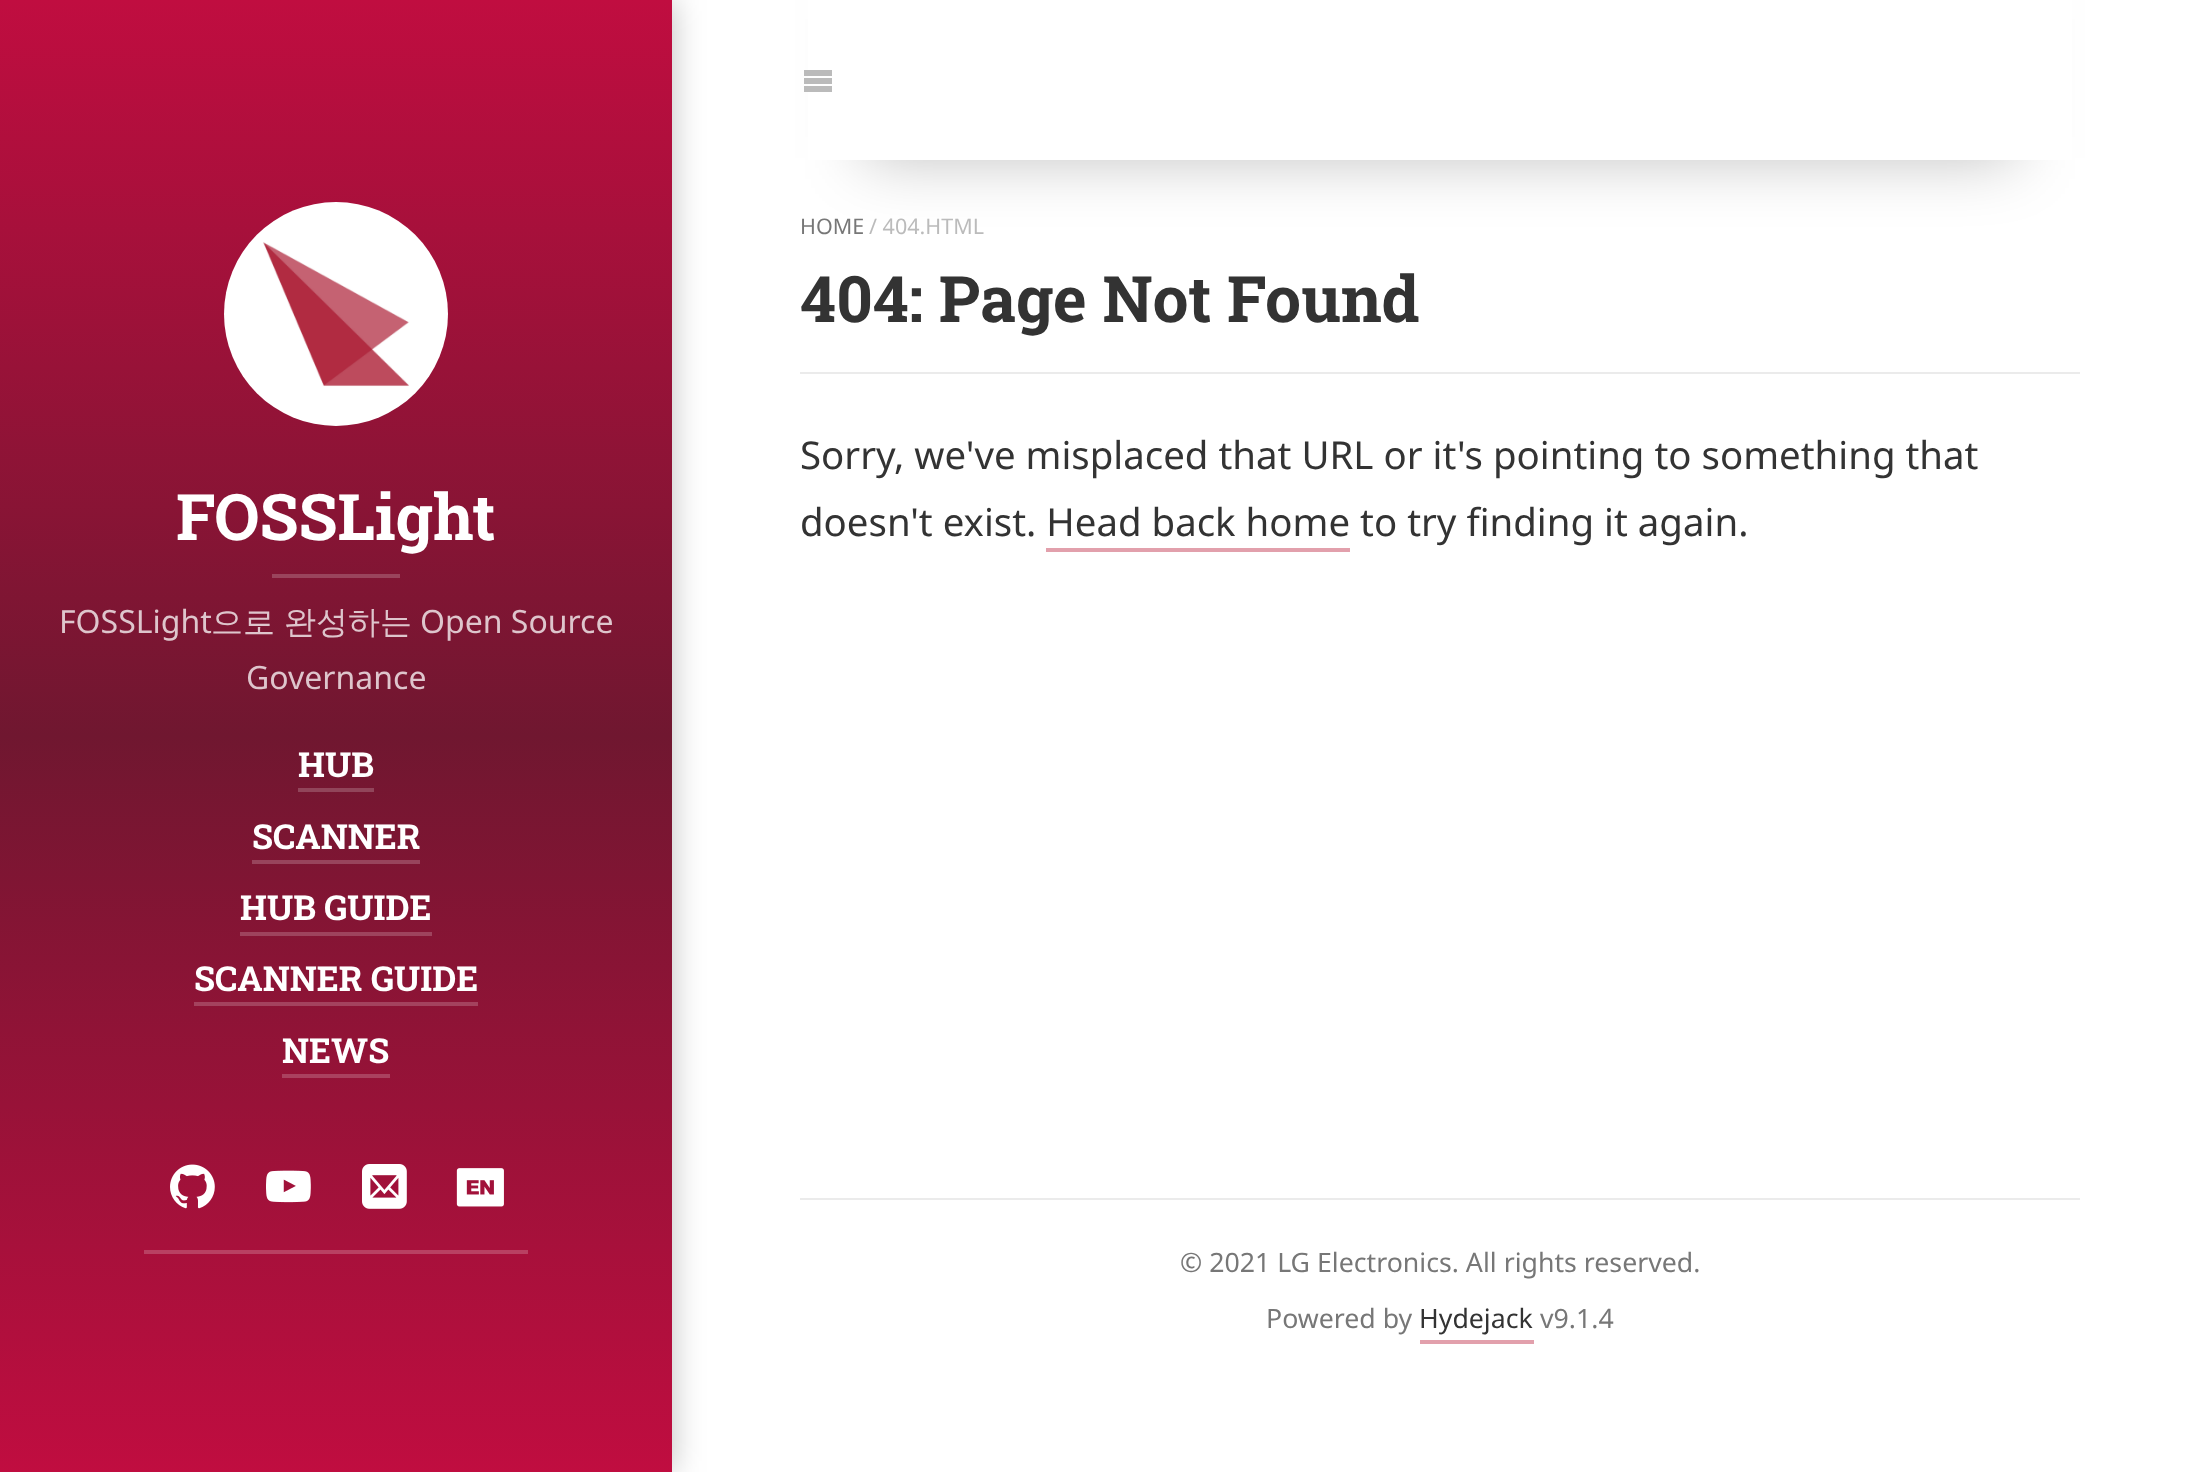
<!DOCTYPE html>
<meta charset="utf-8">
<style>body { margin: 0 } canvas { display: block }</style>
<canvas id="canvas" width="2208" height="1472"></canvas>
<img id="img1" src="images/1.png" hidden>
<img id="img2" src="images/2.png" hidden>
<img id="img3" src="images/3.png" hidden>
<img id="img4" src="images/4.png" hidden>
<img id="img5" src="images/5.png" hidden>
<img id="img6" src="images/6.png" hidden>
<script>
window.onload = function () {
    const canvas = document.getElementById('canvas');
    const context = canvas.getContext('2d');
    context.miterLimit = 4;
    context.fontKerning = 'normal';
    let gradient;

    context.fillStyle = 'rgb(255, 255, 255)';
    context.fillRect(0, 0, 2208, 1472);
    context.fillStyle = 'rgba(0, 0, 0, 0.25)';
    context.filter = 'blur(32px)';
    context.beginPath();
    context.rect(864, -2, 1152, 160);
    context.fill();
    context.filter = 'none';
    context.fillStyle = 'rgb(255, 255, 255)';
    context.fillRect(808, 0, 1264, 160);
    context.drawImage(document.getElementById('img1'), 804, 70, 28, 22);
    context.fillStyle = 'rgba(0, 0, 0, 0.25)';
    context.filter = 'blur(16px)';
    context.beginPath();
    context.rect(-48, 0, 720, 1472);
    context.fill();
    context.filter = 'none';
    gradient = context.createLinearGradient(336, 0, 336, 1472);
    gradient.addColorStop(0, 'rgb(192, 13, 64)');
    gradient.addColorStop(0.5, 'rgb(112, 23, 48)');
    gradient.addColorStop(1, 'rgb(192, 13, 64)');
    context.fillStyle = gradient;
    context.fillRect(0, 0, 672, 1472);
    context.drawImage(document.getElementById('img2'), 224, 202, 224, 224);
    context.fillStyle = 'rgb(154, 68, 92)';
    context.fillRect(272, 574, 128, 4);
    context.fillStyle = 'rgb(145, 69, 90)';
    context.fillRect(298, 788, 76, 4);
    context.fillStyle = 'rgb(152, 68, 92)';
    context.fillRect(252, 860, 168, 4);
    context.fillStyle = 'rgb(158, 67, 93)';
    context.fillRect(240, 932, 192, 4);
    context.fillStyle = 'rgb(164, 66, 94)';
    context.fillRect(194, 1002, 284, 4);
    context.fillStyle = 'rgb(170, 65, 95)';
    context.fillRect(282, 1074, 108, 4);
    context.fillStyle = 'rgb(185, 64, 98)';
    context.fillRect(144, 1250, 384, 4);
    context.drawImage(document.getElementById('img3'), 170, 1164, 45, 45);
    context.drawImage(document.getElementById('img4'), 266, 1170, 45, 33);
    context.drawImage(document.getElementById('img5'), 362, 1164, 45, 45);
    context.drawImage(document.getElementById('img6'), 456, 1168, 48, 39);
    context.fillStyle = 'rgb(235, 235, 235)';
    context.fillRect(800, 372, 1280, 2);
    context.fillStyle = 'rgb(226, 160, 172)';
    context.fillRect(1046, 548, 304, 4);
    context.fillStyle = 'rgb(235, 235, 235)';
    context.fillRect(800, 1198, 1280, 2);
    context.fillStyle = 'rgb(226, 160, 172)';
    context.fillRect(1420, 1340, 114, 4);
    context.font = 'bold 64px Roboto Slab';
    context.fillStyle = 'rgb(255, 255, 255)';
    context.fillText('FOSSLight', 176, 540);
    context.font = '32px Noto Sans';
    context.fillStyle = 'rgb(222, 197, 204)';
    context.fillText('FOSSLight', 59, 633);
    context.font = '500 32px WenQuanYi Zen Hei';
    context.fillText('으로', 211, 633);
    context.fillText('완성하는', 284, 633);
    context.font = '32px Noto Sans';
    context.fillText('Open Source', 420, 633);
    context.fillText('Governance', 246, 689);
    context.font = 'bold 34.5px Roboto Slab';
    context.fillStyle = 'rgb(255, 255, 255)';
    context.fillText('HUB', 298, 777);
    context.fillText('SCANNER', 252, 849);
    context.fillText('HUB GUIDE', 240, 920);
    context.fillText('SCANNER GUIDE', 194, 991);
    context.fillText('NEWS', 282, 1063);
    context.font = '21.5px Noto Sans';
    context.fillStyle = 'rgb(119, 119, 119)';
    context.fillText('HOME', 800, 234);
    context.fillStyle = 'rgb(187, 187, 187)';
    context.fillText('/ 404.HTML', 869, 234);
    context.font = 'bold 64px Roboto Slab';
    context.fillStyle = 'rgb(51, 51, 51)';
    context.fillText('404: Page Not Found', 800, 322);
    context.font = '38.4px Noto Sans';
    context.fillText('Sorry, we\'ve misplaced that URL or it\'s pointing to something that', 800, 469);
    context.fillText('doesn\'t exist. Head back home to try finding it again.', 800, 536);
    context.font = '26.7px Noto Sans';
    context.fillStyle = 'rgb(119, 119, 119)';
    context.fillText('© 2021 LG Electronics. All rights reserved.', 1180, 1272);
    context.fillText('Powered by', 1266, 1328);
    context.fillStyle = 'rgb(51, 51, 51)';
    context.fillText('Hydejack', 1419, 1328);
    context.fillStyle = 'rgb(119, 119, 119)';
    context.fillText('v9.1.4', 1540, 1328);
};
</script>
